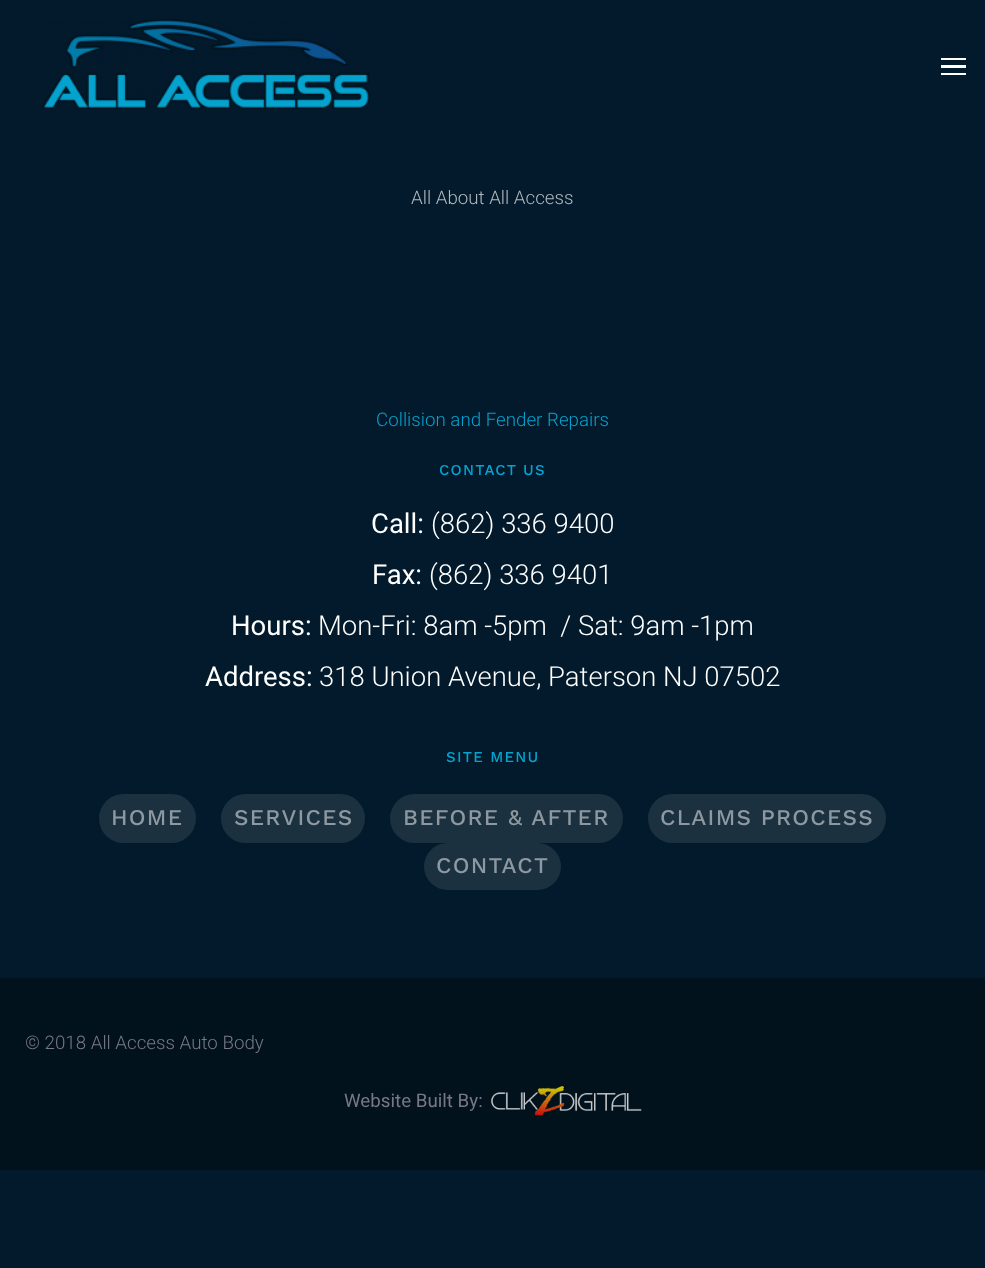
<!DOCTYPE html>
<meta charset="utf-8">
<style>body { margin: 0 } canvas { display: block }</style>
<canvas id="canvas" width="985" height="1268"></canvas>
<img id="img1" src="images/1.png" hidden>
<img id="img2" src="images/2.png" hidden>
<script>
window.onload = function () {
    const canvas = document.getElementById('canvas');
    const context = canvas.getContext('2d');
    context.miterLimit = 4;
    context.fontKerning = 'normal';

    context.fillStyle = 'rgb(2, 26, 43)';
    context.fillRect(0, 0, 985, 1268);
    context.drawImage(document.getElementById('img1'), 42, 19, 328, 90);
    context.fillStyle = 'rgb(255, 255, 255)';
    context.fillRect(941, 58, 25, 2);
    context.fillRect(941, 65, 25, 3);
    context.fillRect(941, 73, 25, 2);
    context.fillStyle = 'rgb(27, 49, 64)';
    context.beginPath();
    context.roundRect(99, 794, 97, 49, 24.5);
    context.fill();
    context.beginPath();
    context.roundRect(221, 794, 144, 49, 24.5);
    context.fill();
    context.beginPath();
    context.roundRect(390, 794, 233, 49, 24.5);
    context.fill();
    context.beginPath();
    context.roundRect(648, 794, 238, 49, 24.5);
    context.fill();
    context.beginPath();
    context.roundRect(424, 843, 137, 47, 23.5);
    context.fill();
    context.fillStyle = 'rgb(2, 18, 29)';
    context.fillRect(0, 978, 985, 192);
    context.drawImage(document.getElementById('img2'), 491, 1086, 151, 30);
    context.font = '300 18.75px Roboto';
    context.fillStyle = 'rgb(179, 186, 191)';
    context.fillText('All About All Access', 411, 204);
    context.fillStyle = 'rgb(5, 163, 207)';
    context.fillText('Collision and Fender Repairs', 376, 426);
    context.letterSpacing = '1.25px';
    context.font = '500 15px Work Sans';
    context.fillText('CONTACT US', 439, 475);
    context.letterSpacing = '0px';
    context.font = '27.5px Roboto';
    context.fillStyle = 'rgb(255, 255, 255)';
    context.fillText('Call:', 371, 533);
    context.font = '300 27.5px Roboto';
    context.fillText('(862) 336 9400', 431, 533);
    context.font = '27.5px Roboto';
    context.fillText('Fax:', 372, 584);
    context.font = '300 27.5px Roboto';
    context.fillText('(862) 336 9401', 429, 584);
    context.font = '27.5px Roboto';
    context.fillText('Hours:', 231, 635);
    context.font = '300 27.5px Roboto';
    context.fillText('Mon-Fri: 8am -5pm  / Sat: 9am -1pm', 318, 635);
    context.font = '27.5px Roboto';
    context.fillText('Address:', 205, 686);
    context.font = '300 27.5px Roboto';
    context.fillText('318 Union Avenue, Paterson NJ 07502', 319, 686);
    context.letterSpacing = '1.25px';
    context.font = '500 15px Work Sans';
    context.fillStyle = 'rgb(5, 163, 207)';
    context.fillText('SITE MENU', 446, 762);
    context.font = '500 22.5px Work Sans';
    context.fillStyle = 'rgb(141, 152, 160)';
    context.fillText('HOME', 111, 825);
    context.fillText('SERVICES', 234, 825);
    context.fillText('BEFORE & AFTER', 403, 825);
    context.fillText('CLAIMS PROCESS', 660, 825);
    context.fillText('CONTACT', 436, 873);
    context.letterSpacing = '0px';
    context.font = '300 18.75px Roboto';
    context.fillStyle = 'rgb(120, 119, 137)';
    context.fillText('© 2018 All Access Auto Body', 25, 1049);
    context.font = '18.75px Roboto';
    context.fillText('Website Built By:', 344, 1107);
};
</script>
